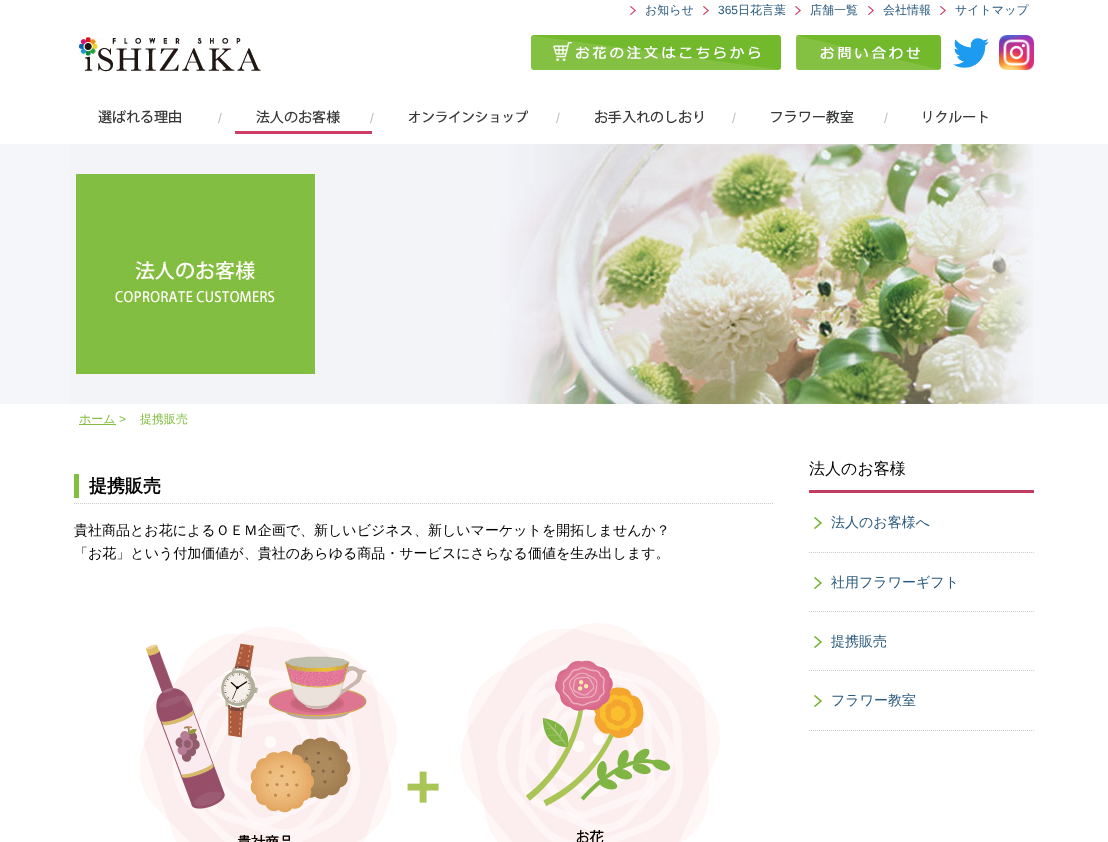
<!DOCTYPE html>
<meta charset="utf-8">
<style>body { margin: 0 } canvas { display: block }</style>
<canvas id="canvas" width="1108" height="842"></canvas>
<img id="img1" src="images/1.png" hidden>
<img id="img2" src="images/2.png" hidden>
<img id="img3" src="images/3.png" hidden>
<img id="img4" src="images/4.png" hidden>
<img id="img5" src="images/5.png" hidden>
<img id="img6" src="images/6.png" hidden>
<img id="img7" src="images/7.png" hidden>
<img id="img8" src="images/8.png" hidden>
<img id="img9" src="images/9.png" hidden>
<img id="img10" src="images/10.png" hidden>
<img id="img11" src="images/11.png" hidden>
<img id="img12" src="images/12.png" hidden>
<img id="img13" src="images/13.png" hidden>
<img id="img14" src="images/14.png" hidden>
<img id="img15" src="images/15.png" hidden>
<script>
window.onload = function () {
    const canvas = document.getElementById('canvas');
    const context = canvas.getContext('2d');
    context.miterLimit = 4;
    context.fontKerning = 'normal';

    context.fillStyle = 'rgb(255, 255, 255)';
    context.fillRect(0, 0, 1108, 842);
    context.drawImage(document.getElementById('img1'), 630, 6, 6, 9);
    context.drawImage(document.getElementById('img1'), 703, 6, 6, 9);
    context.drawImage(document.getElementById('img1'), 795, 6, 6, 9);
    context.drawImage(document.getElementById('img1'), 868, 6, 6, 9);
    context.drawImage(document.getElementById('img1'), 940, 6, 6, 9);
    context.drawImage(document.getElementById('img2'), 531, 35, 250, 35);
    context.drawImage(document.getElementById('img3'), 796, 35, 145, 35);
    context.drawImage(document.getElementById('img4'), 953, 38, 36, 30);
    context.drawImage(document.getElementById('img5'), 999, 35, 35, 35);
    context.drawImage(document.getElementById('img6'), 79, 37, 182, 35);
    context.drawImage(document.getElementById('img7'), 98, 110, 83, 14);
    context.drawImage(document.getElementById('img8'), 256, 110, 84, 14);
    context.fillStyle = 'rgb(206, 59, 100)';
    context.fillRect(235, 131, 137, 3);
    context.drawImage(document.getElementById('img9'), 408, 110, 120, 13);
    context.drawImage(document.getElementById('img10'), 595, 110, 109, 14);
    context.drawImage(document.getElementById('img11'), 771, 110, 83, 14);
    context.drawImage(document.getElementById('img12'), 923, 110, 65, 14);
    context.fillStyle = 'rgb(245, 246, 250)';
    context.fillRect(0, 144, 1108, 260);
    context.drawImage(document.getElementById('img13'), 70, 144, 963, 260);
    context.fillStyle = 'rgb(130, 190, 64)';
    context.fillRect(79, 424, 37, 1);
    context.beginPath();
    context.moveTo(74, 503.5);
    context.lineTo(774, 503.5);
    context.strokeStyle = 'rgb(205, 204, 204)';
    context.setLineDash([1, 1]);
    context.stroke();
    context.fillRect(74, 474, 5, 24);
    context.drawImage(document.getElementById('img14'), 140, 623, 580, 219);
    context.fillStyle = 'rgb(194, 60, 96)';
    context.fillRect(809, 490, 225, 3);
    context.drawImage(document.getElementById('img15'), 814, 517, 8, 12);
    context.beginPath();
    context.moveTo(809, 552.5);
    context.lineTo(1034, 552.5);
    context.stroke();
    context.drawImage(document.getElementById('img15'), 814, 577, 8, 12);
    context.beginPath();
    context.moveTo(809, 611.5);
    context.lineTo(1034, 611.5);
    context.stroke();
    context.drawImage(document.getElementById('img15'), 814, 636, 8, 12);
    context.beginPath();
    context.moveTo(809, 670.5);
    context.lineTo(1034, 670.5);
    context.stroke();
    context.drawImage(document.getElementById('img15'), 814, 695, 8, 12);
    context.beginPath();
    context.moveTo(809, 730.5);
    context.lineTo(1034, 730.5);
    context.stroke();
    context.font = '500 12px WenQuanYi Zen Hei';
    context.fillStyle = 'rgb(41, 89, 126)';
    context.fillText('お知らせ', 645, 14);
    context.font = '12px Liberation Sans';
    context.fillText('365', 718, 14);
    context.font = '500 12px WenQuanYi Zen Hei';
    context.fillText('日花言葉', 738, 14);
    context.fillText('店舗一覧', 810, 14);
    context.fillText('会社情報', 883, 14);
    context.fillText('サイトマップ', 955, 14);
    context.font = '14px Liberation Sans';
    context.fillStyle = 'rgb(195, 194, 194)';
    context.fillText('/', 218, 123);
    context.fillText('/', 370, 123);
    context.fillText('/', 556, 123);
    context.fillText('/', 732, 123);
    context.fillText('/', 884, 123);
    context.font = '500 12px WenQuanYi Zen Hei';
    context.fillStyle = 'rgb(130, 190, 64)';
    context.fillText('ホーム', 79, 423);
    context.font = '12px Liberation Sans';
    context.fillText('>', 119, 423);
    context.font = '500 12px WenQuanYi Zen Hei';
    context.fillText('提携販売', 140, 423);
    context.font = 'bold 18px WenQuanYi Zen Hei';
    context.fillStyle = 'rgb(0, 0, 0)';
    context.fillText('提携販売', 89, 492);
    context.font = '500 14px WenQuanYi Zen Hei';
    context.fillText('貴社商品とお花によるＯＥＭ企画で、新しいビジネス、新しいマーケットを開拓しませんか？', 74, 535);
    context.fillText('「お花」という付加価値が、貴社のあらゆる商品・サービスにさらなる価値を生み出します。', 74, 558);
    context.font = '500 16px WenQuanYi Zen Hei';
    context.fillText('法人のお客様', 809, 474);
    context.font = '500 14px WenQuanYi Zen Hei';
    context.fillStyle = 'rgb(41, 89, 126)';
    context.fillText('法人のお客様へ', 831, 527);
    context.fillText('社用フラワーギフト', 831, 587);
    context.fillText('提携販売', 831, 646);
    context.fillText('フラワー教室', 831, 705);
};
</script>
